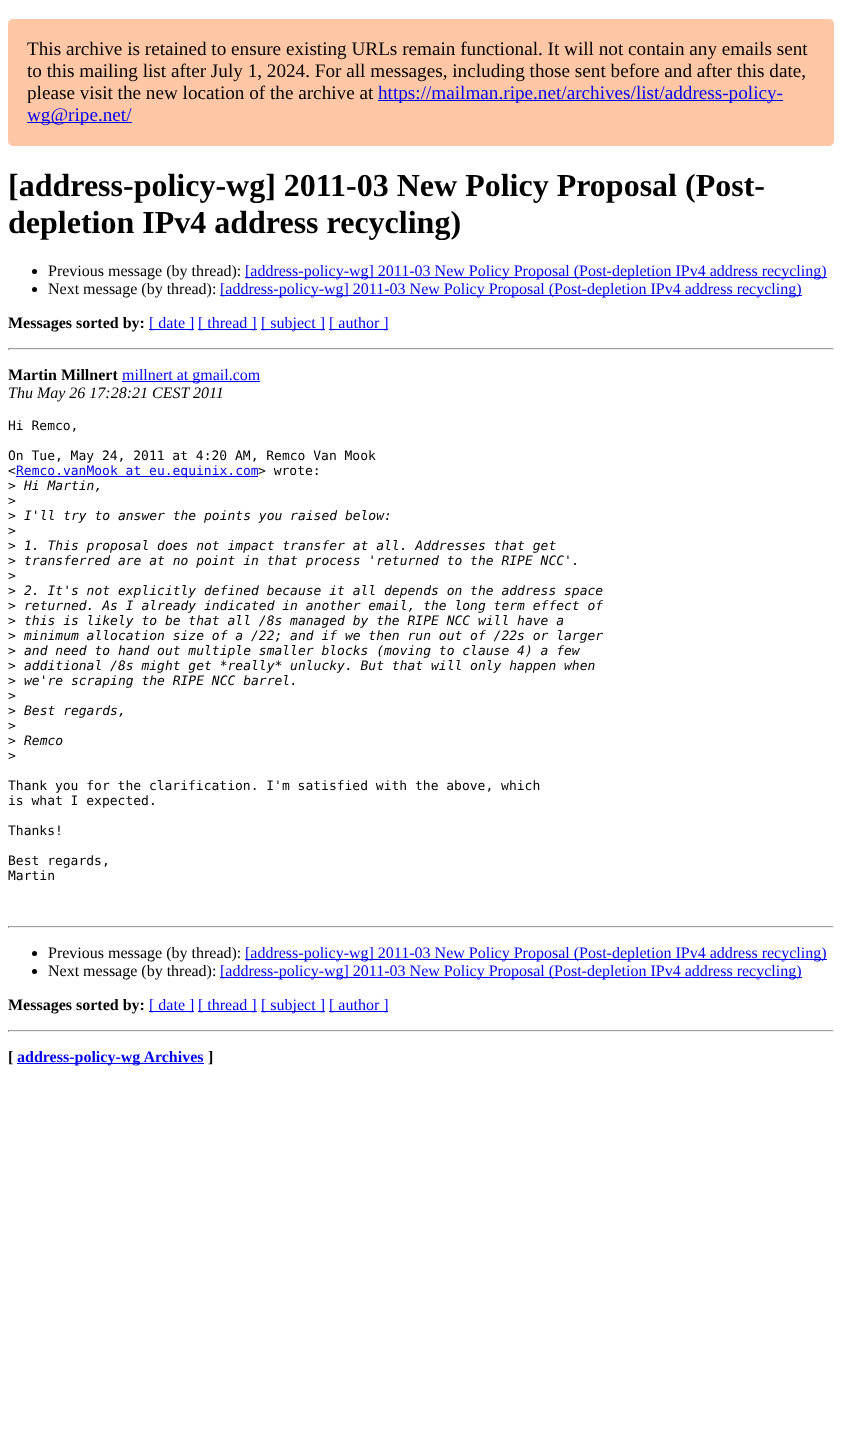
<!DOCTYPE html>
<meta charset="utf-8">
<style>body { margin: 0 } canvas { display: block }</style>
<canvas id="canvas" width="842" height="1437"></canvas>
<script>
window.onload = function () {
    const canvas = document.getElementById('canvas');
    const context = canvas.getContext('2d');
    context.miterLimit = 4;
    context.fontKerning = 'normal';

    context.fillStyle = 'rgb(255, 255, 255)';
    context.fillRect(0, 0, 842, 1437);
    context.fillStyle = 'rgb(255, 199, 166)';
    context.beginPath();
    context.roundRect(8, 19, 826, 127, 5);
    context.fill();
    context.fillStyle = 'rgb(0, 0, 238)';
    context.fillRect(378, 100, 405, 1);
    context.fillRect(27, 122, 105, 1);
    context.fillStyle = 'rgb(0, 0, 0)';
    context.beginPath();
    context.arc(34.5, 271.5, 2.5, 0, 2 * Math.PI);
    context.fill();
    context.fillStyle = 'rgb(0, 0, 238)';
    context.fillRect(245, 277, 582, 1);
    context.fillStyle = 'rgb(0, 0, 0)';
    context.beginPath();
    context.arc(34.5, 289.5, 2.5, 0, 2 * Math.PI);
    context.fill();
    context.fillStyle = 'rgb(0, 0, 238)';
    context.fillRect(220, 295, 582, 1);
    context.fillRect(149, 329, 45, 1);
    context.fillRect(198, 329, 59, 1);
    context.fillRect(261, 329, 64, 1);
    context.fillRect(329, 329, 59, 1);
    context.fillStyle = 'rgb(159, 159, 159)';
    context.fillRect(8, 348, 826, 1);
    context.fillStyle = 'rgb(238, 238, 238)';
    context.fillRect(833, 348, 1, 2);
    context.fillRect(8, 349, 826, 1);
    context.fillStyle = 'rgb(159, 159, 159)';
    context.fillRect(8, 348, 1, 2);
    context.fillStyle = 'rgb(0, 0, 238)';
    context.fillRect(122, 381, 138, 1);
    context.fillRect(16, 476, 242, 1);
    context.fillStyle = 'rgb(159, 159, 159)';
    context.fillRect(8, 926, 826, 1);
    context.fillStyle = 'rgb(238, 238, 238)';
    context.fillRect(833, 926, 1, 2);
    context.fillRect(8, 927, 826, 1);
    context.fillStyle = 'rgb(159, 159, 159)';
    context.fillRect(8, 926, 1, 2);
    context.fillStyle = 'rgb(0, 0, 0)';
    context.beginPath();
    context.arc(34.5, 953.5, 2.5, 0, 2 * Math.PI);
    context.fill();
    context.fillStyle = 'rgb(0, 0, 238)';
    context.fillRect(245, 959, 582, 1);
    context.fillStyle = 'rgb(0, 0, 0)';
    context.beginPath();
    context.arc(34.5, 971.5, 2.5, 0, 2 * Math.PI);
    context.fill();
    context.fillStyle = 'rgb(0, 0, 238)';
    context.fillRect(220, 977, 582, 1);
    context.fillRect(149, 1011, 45, 1);
    context.fillRect(198, 1011, 59, 1);
    context.fillRect(261, 1011, 64, 1);
    context.fillRect(329, 1011, 59, 1);
    context.fillStyle = 'rgb(159, 159, 159)';
    context.fillRect(8, 1030, 826, 1);
    context.fillStyle = 'rgb(238, 238, 238)';
    context.fillRect(833, 1030, 1, 2);
    context.fillRect(8, 1031, 826, 1);
    context.fillStyle = 'rgb(159, 159, 159)';
    context.fillRect(8, 1030, 1, 2);
    context.fillStyle = 'rgb(0, 0, 238)';
    context.fillRect(17, 1063, 187, 1);
    context.font = '19.2px Liberation Serif';
    context.fillStyle = 'rgb(0, 0, 0)';
    context.fillText('This archive is retained to ensure existing URLs remain functional. It will not contain any emails sent', 27, 55);
    context.fillText('to this mailing list after July 1, 2024. For all messages, including those sent before and after this date,', 27, 77);
    context.fillText('please visit the new location of the archive at', 27, 99);
    context.fillStyle = 'rgb(0, 0, 238)';
    context.fillText('https://mailman.ripe.net/archives/list/address-policy-', 378, 99);
    context.fillText('wg@ripe.net/', 27, 121);
    context.font = 'bold 32px Liberation Serif';
    context.fillStyle = 'rgb(0, 0, 0)';
    context.fillText('[address-policy-wg] 2011-03 New Policy Proposal (Post-', 8, 196);
    context.fillText('depletion IPv4 address recycling)', 8, 233);
    context.font = '16px Liberation Serif';
    context.fillText('Previous message (by thread):', 48, 276);
    context.fillStyle = 'rgb(0, 0, 238)';
    context.fillText('[address-policy-wg] 2011-03 New Policy Proposal (Post-depletion IPv4 address recycling)', 245, 276);
    context.fillStyle = 'rgb(0, 0, 0)';
    context.fillText('Next message (by thread):', 48, 294);
    context.fillStyle = 'rgb(0, 0, 238)';
    context.fillText('[address-policy-wg] 2011-03 New Policy Proposal (Post-depletion IPv4 address recycling)', 220, 294);
    context.font = 'bold 16px Liberation Serif';
    context.fillStyle = 'rgb(0, 0, 0)';
    context.fillText('Messages sorted by:', 8, 328);
    context.font = '16px Liberation Serif';
    context.fillStyle = 'rgb(0, 0, 238)';
    context.fillText('[ date ]', 149, 328);
    context.fillText('[ thread ]', 198, 328);
    context.fillText('[ subject ]', 261, 328);
    context.fillText('[ author ]', 329, 328);
    context.font = 'bold 16px Liberation Serif';
    context.fillStyle = 'rgb(0, 0, 0)';
    context.fillText('Martin Millnert', 8, 380);
    context.font = '16px Liberation Serif';
    context.fillStyle = 'rgb(0, 0, 238)';
    context.fillText('millnert at gmail.com', 122, 380);
    context.font = 'italic 16px Liberation Serif';
    context.fillStyle = 'rgb(0, 0, 0)';
    context.fillText('Thu May 26 17:28:21 CEST 2011', 8, 398);
    context.font = '13px DejaVu Sans Mono';
    context.fillText('Hi Remco,', 8, 430);
    context.fillText('On Tue, May 24, 2011 at 4:20 AM, Remco Van Mook', 8, 460);
    context.fillText('<', 8, 475);
    context.fillStyle = 'rgb(0, 0, 238)';
    context.fillText('Remco.vanMook at eu.equinix.com', 16, 475);
    context.fillStyle = 'rgb(0, 0, 0)';
    context.fillText('> wrote:', 258, 475);
    context.fillText('>', 8, 490);
    context.font = 'italic 13px DejaVu Sans Mono';
    context.fillText('Hi Martin,', 24, 490);
    context.font = '13px DejaVu Sans Mono';
    context.fillText('>', 8, 505);
    context.fillText('>', 8, 520);
    context.font = 'italic 13px DejaVu Sans Mono';
    context.fillText('I\'ll try to answer the points you raised below:', 24, 520);
    context.font = '13px DejaVu Sans Mono';
    context.fillText('>', 8, 535);
    context.fillText('>', 8, 550);
    context.font = 'italic 13px DejaVu Sans Mono';
    context.fillText('1. This proposal does not impact transfer at all. Addresses that get', 24, 550);
    context.font = '13px DejaVu Sans Mono';
    context.fillText('>', 8, 565);
    context.font = 'italic 13px DejaVu Sans Mono';
    context.fillText('transferred are at no point in that process \'returned to the RIPE NCC\'.', 24, 565);
    context.font = '13px DejaVu Sans Mono';
    context.fillText('>', 8, 580);
    context.fillText('>', 8, 595);
    context.font = 'italic 13px DejaVu Sans Mono';
    context.fillText('2. It\'s not explicitly defined because it all depends on the address space', 24, 595);
    context.font = '13px DejaVu Sans Mono';
    context.fillText('>', 8, 610);
    context.font = 'italic 13px DejaVu Sans Mono';
    context.fillText('returned. As I already indicated in another email, the long term effect of', 24, 610);
    context.font = '13px DejaVu Sans Mono';
    context.fillText('>', 8, 625);
    context.font = 'italic 13px DejaVu Sans Mono';
    context.fillText('this is likely to be that all /8s managed by the RIPE NCC will have a', 24, 625);
    context.font = '13px DejaVu Sans Mono';
    context.fillText('>', 8, 640);
    context.font = 'italic 13px DejaVu Sans Mono';
    context.fillText('minimum allocation size of a /22; and if we then run out of /22s or larger', 24, 640);
    context.font = '13px DejaVu Sans Mono';
    context.fillText('>', 8, 655);
    context.font = 'italic 13px DejaVu Sans Mono';
    context.fillText('and need to hand out multiple smaller blocks (moving to clause 4) a few', 24, 655);
    context.font = '13px DejaVu Sans Mono';
    context.fillText('>', 8, 670);
    context.font = 'italic 13px DejaVu Sans Mono';
    context.fillText('additional /8s might get *really* unlucky. But that will only happen when', 24, 670);
    context.font = '13px DejaVu Sans Mono';
    context.fillText('>', 8, 685);
    context.font = 'italic 13px DejaVu Sans Mono';
    context.fillText('we\'re scraping the RIPE NCC barrel.', 24, 685);
    context.font = '13px DejaVu Sans Mono';
    context.fillText('>', 8, 700);
    context.fillText('>', 8, 715);
    context.font = 'italic 13px DejaVu Sans Mono';
    context.fillText('Best regards,', 24, 715);
    context.font = '13px DejaVu Sans Mono';
    context.fillText('>', 8, 730);
    context.fillText('>', 8, 745);
    context.font = 'italic 13px DejaVu Sans Mono';
    context.fillText('Remco', 24, 745);
    context.font = '13px DejaVu Sans Mono';
    context.fillText('>', 8, 760);
    context.fillText('Thank you for the clarification. I\'m satisfied with the above, which', 8, 790);
    context.fillText('is what I expected.', 8, 805);
    context.fillText('Thanks!', 8, 835);
    context.fillText('Best regards,', 8, 865);
    context.fillText('Martin', 8, 880);
    context.font = '16px Liberation Serif';
    context.fillText('Previous message (by thread):', 48, 958);
    context.fillStyle = 'rgb(0, 0, 238)';
    context.fillText('[address-policy-wg] 2011-03 New Policy Proposal (Post-depletion IPv4 address recycling)', 245, 958);
    context.fillStyle = 'rgb(0, 0, 0)';
    context.fillText('Next message (by thread):', 48, 976);
    context.fillStyle = 'rgb(0, 0, 238)';
    context.fillText('[address-policy-wg] 2011-03 New Policy Proposal (Post-depletion IPv4 address recycling)', 220, 976);
    context.font = 'bold 16px Liberation Serif';
    context.fillStyle = 'rgb(0, 0, 0)';
    context.fillText('Messages sorted by:', 8, 1010);
    context.font = '16px Liberation Serif';
    context.fillStyle = 'rgb(0, 0, 238)';
    context.fillText('[ date ]', 149, 1010);
    context.fillText('[ thread ]', 198, 1010);
    context.fillText('[ subject ]', 261, 1010);
    context.fillText('[ author ]', 329, 1010);
    context.font = 'bold 16px Liberation Serif';
    context.fillStyle = 'rgb(0, 0, 0)';
    context.fillText('[', 8, 1062);
    context.fillStyle = 'rgb(0, 0, 238)';
    context.fillText('address-policy-wg Archives', 17, 1062);
    context.fillStyle = 'rgb(0, 0, 0)';
    context.fillText(']', 208, 1062);
};
</script>
